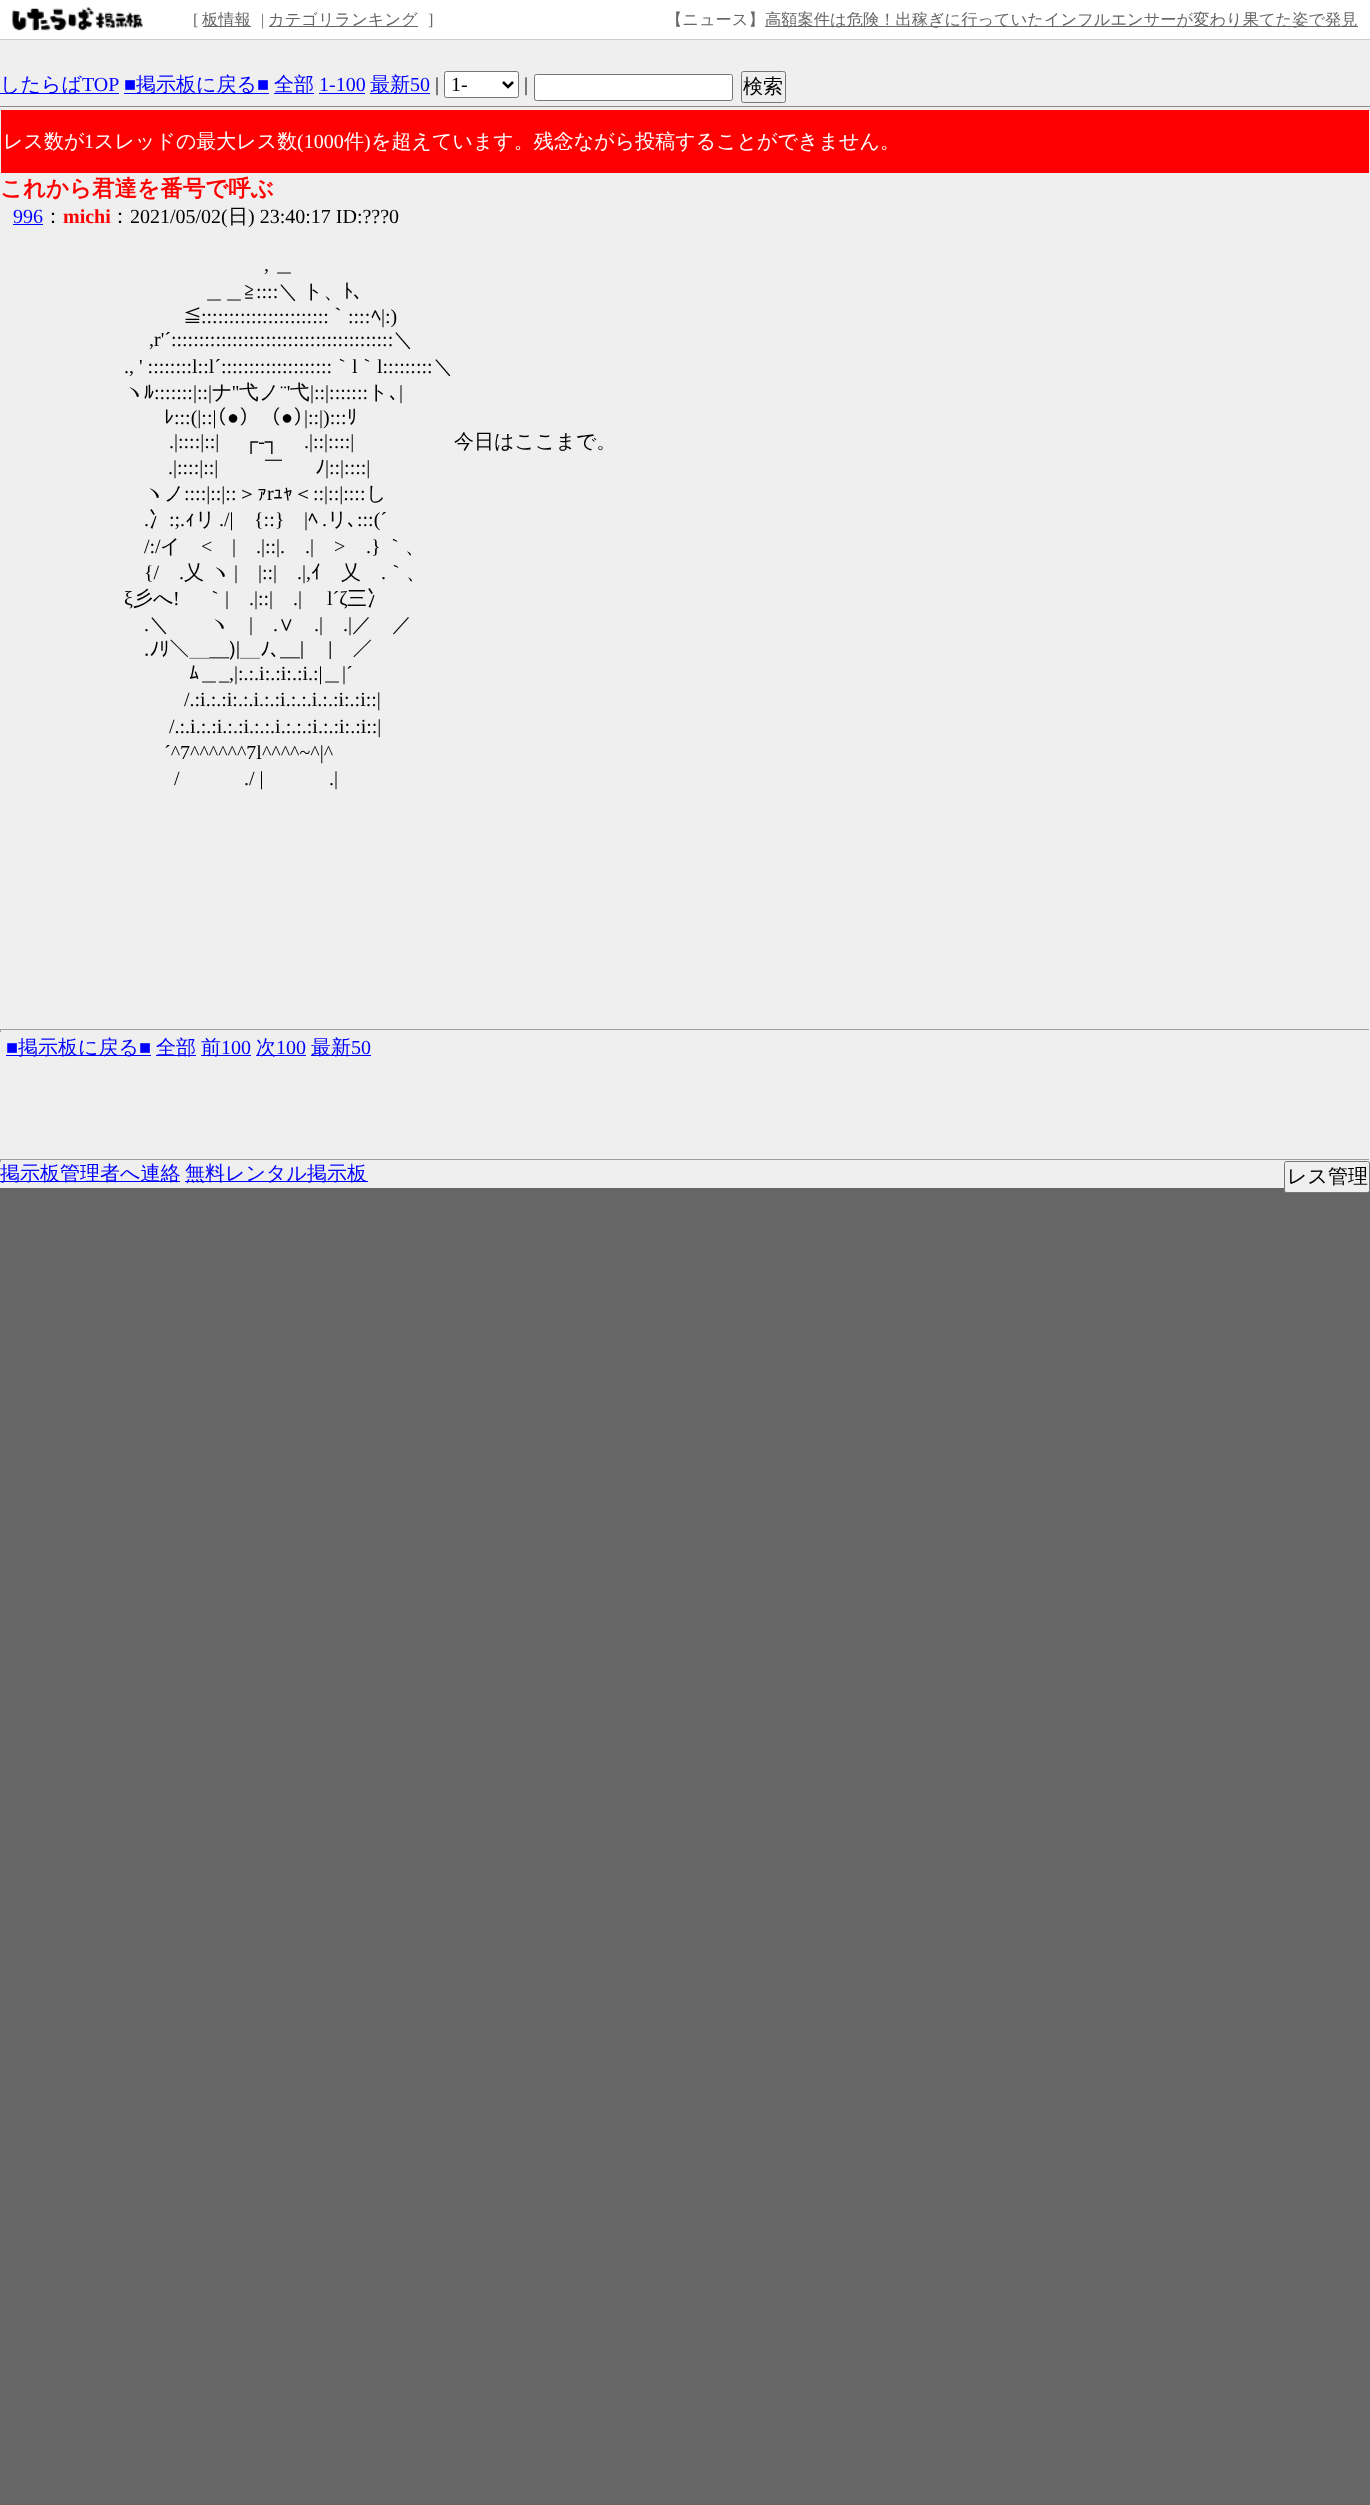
<!DOCTYPE html>
<meta charset="utf-8">
<style>body { margin: 0 } canvas { display: block }</style>
<canvas id="canvas" width="1370" height="2505"></canvas>
<img id="img1" src="images/1.png" hidden>
<script>
window.onload = function () {
    const canvas = document.getElementById('canvas');
    const context = canvas.getContext('2d');
    context.miterLimit = 4;
    context.fontKerning = 'normal';

    context.fillStyle = 'rgb(102, 102, 102)';
    context.fillRect(0, 0, 1370, 2505);
    context.fillStyle = 'rgb(239, 239, 239)';
    context.fillRect(0, 40, 1370, 1148);
    context.fillStyle = 'rgb(255, 255, 255)';
    context.fillRect(0, 0, 1370, 39);
    context.fillStyle = 'rgb(204, 204, 204)';
    context.fillRect(0, 39, 1370, 1);
    context.drawImage(document.getElementById('img1'), 12, 7, 131, 25);
    context.fillStyle = 'rgb(102, 102, 102)';
    context.fillRect(203, 26, 48, 1);
    context.fillRect(269, 26, 149, 1);
    context.fillRect(765, 26, 593, 1);
    context.fillStyle = 'rgb(136, 136, 136)';
    context.fillRect(0, 106, 1370, 1);
    context.fillStyle = 'rgb(0, 0, 255)';
    context.fillRect(0, 93, 119, 1);
    context.fillRect(124, 93, 145, 1);
    context.fillRect(274, 93, 40, 1);
    context.fillRect(319, 93, 46, 1);
    context.fillRect(370, 93, 60, 1);
    context.fillStyle = 'rgb(255, 255, 255)';
    context.beginPath();
    context.roundRect(444.5, 71.5, 74, 26, 2);
    context.fill();
    context.strokeStyle = 'rgb(118, 118, 118)';
    context.stroke();
    context.beginPath();
    context.moveTo(503, 82);
    context.lineTo(508, 87);
    context.lineTo(513, 82);
    context.strokeStyle = 'rgb(0, 0, 0)';
    context.lineWidth = 2.5;
    context.stroke();
    context.beginPath();
    context.roundRect(534.5, 74.5, 198, 26, 2);
    context.fill();
    context.strokeStyle = 'rgb(118, 118, 118)';
    context.lineWidth = 1;
    context.stroke();
    context.beginPath();
    context.roundRect(741.5, 71.5, 44, 31, 2);
    context.stroke();
    context.fillStyle = 'rgb(255, 0, 0)';
    context.fillRect(1, 110, 1368, 63);
    context.fillStyle = 'rgb(0, 0, 255)';
    context.fillRect(13, 224, 30, 1);
    context.fillStyle = 'rgb(159, 159, 159)';
    context.fillRect(0, 1029, 1370, 1);
    context.fillStyle = 'rgb(238, 238, 238)';
    context.fillRect(1369, 1029, 1, 3);
    context.fillStyle = 'rgb(159, 159, 159)';
    context.fillRect(0, 1029, 1, 3);
    context.fillStyle = 'rgb(0, 0, 255)';
    context.fillRect(6, 1055, 145, 1);
    context.fillRect(156, 1055, 40, 1);
    context.fillRect(201, 1055, 50, 1);
    context.fillRect(256, 1055, 50, 1);
    context.fillRect(311, 1055, 60, 1);
    context.fillStyle = 'rgb(159, 159, 159)';
    context.fillRect(0, 1159, 1370, 1);
    context.fillStyle = 'rgb(238, 238, 238)';
    context.fillRect(1369, 1159, 1, 3);
    context.fillStyle = 'rgb(159, 159, 159)';
    context.fillRect(0, 1159, 1, 3);
    context.fillStyle = 'rgb(0, 0, 255)';
    context.fillRect(0, 1181, 180, 1);
    context.fillRect(185, 1181, 183, 1);
    context.fillStyle = 'rgb(239, 239, 239)';
    context.beginPath();
    context.roundRect(1284.5, 1161.5, 85, 31, 2);
    context.fill();
    context.stroke();
    context.font = '16.25px Liberation Serif';
    context.fillStyle = 'rgb(102, 102, 102)';
    context.fillText('[', 193, 25);
    context.font = '500 16.25px WenQuanYi Zen Hei';
    context.fillText('板情報', 202, 25);
    context.font = '16.25px Liberation Serif';
    context.fillText('|', 261, 25);
    context.font = '500 16.25px WenQuanYi Zen Hei';
    context.fillText('カテゴリランキング', 268, 25);
    context.font = '16.25px Liberation Serif';
    context.fillText(']', 428, 25);
    context.font = '500 16.25px WenQuanYi Zen Hei';
    context.fillText('【ニュース】', 666, 25);
    context.fillText('高額案件は危険！出稼ぎに行っていたインフルエンサーが変わり果てた姿で発見', 765, 25);
    context.font = '500 20px WenQuanYi Zen Hei';
    context.fillStyle = 'rgb(0, 0, 255)';
    context.fillText('したらば', 0, 91);
    context.font = '20px Liberation Serif';
    context.fillText('TOP', 82, 91);
    context.fillText('■', 124, 91);
    context.font = '500 20px WenQuanYi Zen Hei';
    context.fillText('掲示板に戻る', 136, 91);
    context.font = '20px Liberation Serif';
    context.fillText('■', 257, 91);
    context.font = '500 20px WenQuanYi Zen Hei';
    context.fillText('全部', 274, 91);
    context.font = '20px Liberation Serif';
    context.fillText('1-100', 319, 91);
    context.font = '500 20px WenQuanYi Zen Hei';
    context.fillText('最新', 370, 91);
    context.font = '20px Liberation Serif';
    context.fillText('50', 410, 91);
    context.fillStyle = 'rgb(0, 0, 0)';
    context.fillText('|', 435, 91);
    context.fillText('1-', 451, 91);
    context.fillText('|', 524, 91);
    context.font = '500 20px WenQuanYi Zen Hei';
    context.fillText('検索', 743, 93);
    context.fillStyle = 'rgb(255, 255, 255)';
    context.fillText('レス数が', 3, 148);
    context.font = '20px Liberation Serif';
    context.fillText('1', 84, 148);
    context.font = '500 20px WenQuanYi Zen Hei';
    context.fillText('スレッドの最大レス数', 94, 148);
    context.font = '20px Liberation Serif';
    context.fillText('(1000', 297, 148);
    context.font = '500 20px WenQuanYi Zen Hei';
    context.fillText('件', 344, 148);
    context.font = '20px Liberation Serif';
    context.fillText(')', 364, 148);
    context.font = '500 20px WenQuanYi Zen Hei';
    context.fillText('を超えています。残念ながら投稿することができません。', 371, 148);
    context.font = 'bold 22.5px WenQuanYi Zen Hei';
    context.fillStyle = 'rgb(255, 0, 0)';
    context.fillText('これから君達を番号で呼ぶ', 0, 196);
    context.font = '20px Liberation Serif';
    context.fillStyle = 'rgb(0, 0, 255)';
    context.fillText('996', 13, 223);
    context.font = '500 20px WenQuanYi Zen Hei';
    context.fillStyle = 'rgb(0, 0, 0)';
    context.fillText('：', 43, 223);
    context.font = 'bold 20px Liberation Serif';
    context.fillStyle = 'rgb(255, 0, 0)';
    context.fillText('michi', 63, 223);
    context.font = '500 20px WenQuanYi Zen Hei';
    context.fillStyle = 'rgb(0, 0, 0)';
    context.fillText('：', 110, 223);
    context.font = '20px Liberation Serif';
    context.fillText('2021/05/02(', 130, 223);
    context.font = '500 20px WenQuanYi Zen Hei';
    context.fillText('日', 228, 223);
    context.font = '20px Liberation Serif';
    context.fillText(') 23:40:17 ID:???0', 248, 223);
    context.fillText(',', 264, 271);
    context.font = '500 20px WenQuanYi Zen Hei';
    context.fillText('＿', 274, 271);
    context.fillText('＿＿≧', 204, 298);
    context.font = '20px Liberation Serif';
    context.fillText('::::', 256, 298);
    context.wordSpacing = '-1px';
    context.font = '500 20px WenQuanYi Zen Hei';
    context.fillText('＼ ト、', 278, 298);
    context.wordSpacing = '0px';
    context.font = '20px IPAPGothic';
    context.fillText('ﾄ､', 343, 298);
    context.fillText('≦', 184, 323);
    context.font = '20px Liberation Serif';
    context.fillText(':::::::::::::::::::::::', 201, 323);
    context.font = '20px IPAPGothic';
    context.fillText('｀', 328, 323);
    context.font = '20px Liberation Serif';
    context.fillText('::::', 348, 323);
    context.font = '20px IPAPGothic';
    context.fillText('ﾍ', 371, 323);
    context.font = '20px Liberation Serif';
    context.fillText('|:)', 381, 323);
    context.fillText(',r\'´::::::::::::::::::::::::::::::::::::::::', 149, 346);
    context.font = '500 20px WenQuanYi Zen Hei';
    context.fillText('＼', 393, 346);
    context.font = '20px Liberation Serif';
    context.fillText('., \' ::::::::l::l´::::::::::::::::::::', 124, 373);
    context.font = '500 20px WenQuanYi Zen Hei';
    context.fillText('｀', 332, 373);
    context.font = '20px Liberation Serif';
    context.fillText('l', 352, 373);
    context.font = '500 20px WenQuanYi Zen Hei';
    context.fillText('｀', 357, 373);
    context.font = '20px Liberation Serif';
    context.fillText('l:::::::::', 377, 373);
    context.font = '500 20px WenQuanYi Zen Hei';
    context.fillText('＼', 433, 373);
    context.fillText('ヽ', 124, 399);
    context.font = '20px IPAPGothic';
    context.fillText('ﾙ', 144, 399);
    context.font = '20px Liberation Serif';
    context.fillText(':::::::|::|', 154, 399);
    context.font = '500 20px WenQuanYi Zen Hei';
    context.fillText('ナ', 212, 399);
    context.font = '20px Liberation Serif';
    context.fillText('\'\'', 232, 399);
    context.font = '500 20px WenQuanYi Zen Hei';
    context.fillText('弋ノ', 239, 399);
    context.font = '20px Liberation Serif';
    context.fillText('¨\'', 280, 399);
    context.font = '500 20px WenQuanYi Zen Hei';
    context.fillText('弋', 290, 399);
    context.font = '20px Liberation Serif';
    context.fillText('|::|:::::::', 310, 399);
    context.font = '500 20px WenQuanYi Zen Hei';
    context.fillText('ト', 368, 399);
    context.font = '20px Liberation Serif';
    context.fillText('|', 399, 399);
    context.font = '20px IPAPGothic';
    context.fillText('､', 389, 399);
    context.fillText('ﾚ', 164, 424);
    context.font = '20px Liberation Serif';
    context.fillText(':::(|::|', 174, 424);
    context.font = '20px IPAPGothic';
    context.fillText('（', 216, 424);
    context.font = '20px Liberation Serif';
    context.fillText('●', 227, 424);
    context.font = '20px IPAPGothic';
    context.fillText('）　（', 239, 424);
    context.font = '20px Liberation Serif';
    context.fillText('●', 281, 424);
    context.font = '20px IPAPGothic';
    context.fillText('）', 293, 424);
    context.font = '20px Liberation Serif';
    context.fillText('|::|):::', 304, 424);
    context.font = '20px IPAPGothic';
    context.fillText('ﾘ', 347, 424);
    context.font = '20px Liberation Serif';
    context.fillText('.|::::|::|', 169, 448);
    context.fillText('┌‐┐', 244, 448);
    context.fillText('.|::|::::|', 304, 448);
    context.font = '500 20px WenQuanYi Zen Hei';
    context.fillText('今日はここまで。', 454, 448);
    context.font = '20px Liberation Serif';
    context.fillText('.|::::|::|', 168, 474);
    context.wordSpacing = '-1px';
    context.font = '500 20px WenQuanYi Zen Hei';
    context.fillText('ゝ　 ￣', 218, 474);
    context.wordSpacing = '0px';
    context.font = '20px IPAPGothic';
    context.fillText('ﾉ', 315, 474);
    context.font = '20px Liberation Serif';
    context.fillText('|::|::::|', 325, 474);
    context.font = '500 20px WenQuanYi Zen Hei';
    context.fillText('ヽノ', 144, 500);
    context.font = '20px Liberation Serif';
    context.fillText('::::|::|::', 184, 500);
    context.font = '500 20px WenQuanYi Zen Hei';
    context.fillText('＞', 237, 500);
    context.font = '20px IPAPGothic';
    context.fillText('ｧ', 257, 500);
    context.font = '20px Liberation Serif';
    context.fillText('r', 267, 500);
    context.font = '20px IPAPGothic';
    context.fillText('ｭｬ', 273, 500);
    context.font = '500 20px WenQuanYi Zen Hei';
    context.fillText('＜', 293, 500);
    context.font = '20px Liberation Serif';
    context.fillText('::|::|::::', 313, 500);
    context.font = '500 20px WenQuanYi Zen Hei';
    context.fillText('し', 366, 500);
    context.font = '20px Liberation Serif';
    context.fillText('.', 144, 526);
    context.font = '500 20px WenQuanYi Zen Hei';
    context.fillText('冫', 149, 526);
    context.font = '20px Liberation Serif';
    context.fillText(':;.', 169, 526);
    context.font = '20px IPAPGothic';
    context.fillText('ｨ', 185, 526);
    context.font = '500 20px WenQuanYi Zen Hei';
    context.fillText('リ', 195, 526);
    context.font = '20px Liberation Serif';
    context.fillText('./|', 219, 526);
    context.fillText('{::}', 254, 526);
    context.fillText('|', 304, 526);
    context.font = '20px IPAPGothic';
    context.fillText('ﾍ', 308, 526);
    context.font = '20px Liberation Serif';
    context.fillText('.', 322, 526);
    context.font = '500 20px WenQuanYi Zen Hei';
    context.fillText('リ', 327, 526);
    context.font = '20px IPAPGothic';
    context.fillText('､', 347, 526);
    context.font = '20px Liberation Serif';
    context.fillText(':::(´', 357, 526);
    context.fillText('/:/', 144, 553);
    context.font = '500 20px WenQuanYi Zen Hei';
    context.fillText('イ', 160, 553);
    context.font = '20px Liberation Serif';
    context.fillText('<', 201, 553);
    context.fillText('|', 232, 553);
    context.fillText('.|::|.', 256, 553);
    context.fillText('.|', 305, 553);
    context.fillText('>', 334, 553);
    context.fillText('.}', 366, 553);
    context.font = '500 20px WenQuanYi Zen Hei';
    context.fillText('｀、', 385, 553);
    context.font = '20px Liberation Serif';
    context.fillText('{/', 144, 579);
    context.fillText('.', 179, 579);
    context.font = '500 20px WenQuanYi Zen Hei';
    context.fillText('乂 ヽ', 184, 579);
    context.font = '20px Liberation Serif';
    context.fillText('|', 234, 579);
    context.fillText('|::|', 258, 579);
    context.fillText('.|,', 297, 579);
    context.font = '20px IPAPGothic';
    context.fillText('ｲ', 311, 579);
    context.font = '500 20px WenQuanYi Zen Hei';
    context.fillText('乂', 341, 579);
    context.font = '20px Liberation Serif';
    context.fillText('.', 381, 579);
    context.font = '500 20px WenQuanYi Zen Hei';
    context.fillText('｀、', 386, 579);
    context.font = '20px Liberation Serif';
    context.fillText('ξ', 124, 605);
    context.font = '500 20px WenQuanYi Zen Hei';
    context.fillText('彡へ', 133, 605);
    context.font = '20px Liberation Serif';
    context.fillText('!', 173, 605);
    context.font = '500 20px WenQuanYi Zen Hei';
    context.fillText('｀', 205, 605);
    context.font = '20px Liberation Serif';
    context.fillText('|', 225, 605);
    context.fillText('.|::|', 249, 605);
    context.fillText('.|', 293, 605);
    context.fillText('l´ζ', 327, 605);
    context.font = '500 20px WenQuanYi Zen Hei';
    context.fillText('三冫', 347, 605);
    context.font = '20px Liberation Serif';
    context.fillText('.', 144, 631);
    context.font = '500 20px WenQuanYi Zen Hei';
    context.fillText('＼　　ヽ', 149, 631);
    context.font = '20px Liberation Serif';
    context.fillText('|', 249, 631);
    context.fillText('.', 273, 631);
    context.font = '500 20px WenQuanYi Zen Hei';
    context.fillText('∨', 278, 631);
    context.font = '20px Liberation Serif';
    context.fillText('.|', 314, 631);
    context.fillText('.|', 343, 631);
    context.font = '500 20px WenQuanYi Zen Hei';
    context.fillText('／　／', 352, 631);
    context.wordSpacing = '-1px';
    context.font = '20px IPAPGothic';
    context.fillText('.ﾉﾘ＼＿__)|＿ﾉ､__|　 |　／', 144, 656);
    context.wordSpacing = '0px';
    context.fillText('ﾑ', 189, 680);
    context.font = '500 20px WenQuanYi Zen Hei';
    context.fillText('＿', 199, 680);
    context.font = '20px Liberation Serif';
    context.fillText('_,|:.:.i:.:i:.:i.:|', 219, 680);
    context.font = '500 20px WenQuanYi Zen Hei';
    context.fillText('＿', 322, 680);
    context.font = '20px Liberation Serif';
    context.fillText('|´', 342, 680);
    context.fillText('/.:i.:.:i:.:.i.:.:i.:.:.i.:.:i:.:i::|', 184, 706);
    context.fillText('/.:.i.:.:i.:.:i.:.:.i.:.:.:i.:.:i:.:i::|', 169, 733);
    context.fillText('´^7^^^^^^7l^^^^~^|^', 164, 759);
    context.fillText('/', 174, 785);
    context.fillText('./ |', 244, 785);
    context.fillText('.|', 329, 785);
    context.fillStyle = 'rgb(0, 0, 255)';
    context.fillText('■', 6, 1054);
    context.font = '500 20px WenQuanYi Zen Hei';
    context.fillText('掲示板に戻る', 18, 1054);
    context.font = '20px Liberation Serif';
    context.fillText('■', 139, 1054);
    context.font = '500 20px WenQuanYi Zen Hei';
    context.fillText('全部', 156, 1054);
    context.fillText('前', 201, 1054);
    context.font = '20px Liberation Serif';
    context.fillText('100', 221, 1054);
    context.font = '500 20px WenQuanYi Zen Hei';
    context.fillText('次', 256, 1054);
    context.font = '20px Liberation Serif';
    context.fillText('100', 276, 1054);
    context.font = '500 20px WenQuanYi Zen Hei';
    context.fillText('最新', 311, 1054);
    context.font = '20px Liberation Serif';
    context.fillText('50', 351, 1054);
    context.font = '500 20px WenQuanYi Zen Hei';
    context.fillText('掲示板管理者へ連絡', 0, 1180);
    context.fillText('無料レンタル掲示板', 185, 1180);
    context.fillStyle = 'rgb(0, 0, 0)';
    context.fillText('レス管理', 1287, 1183);
};
</script>
